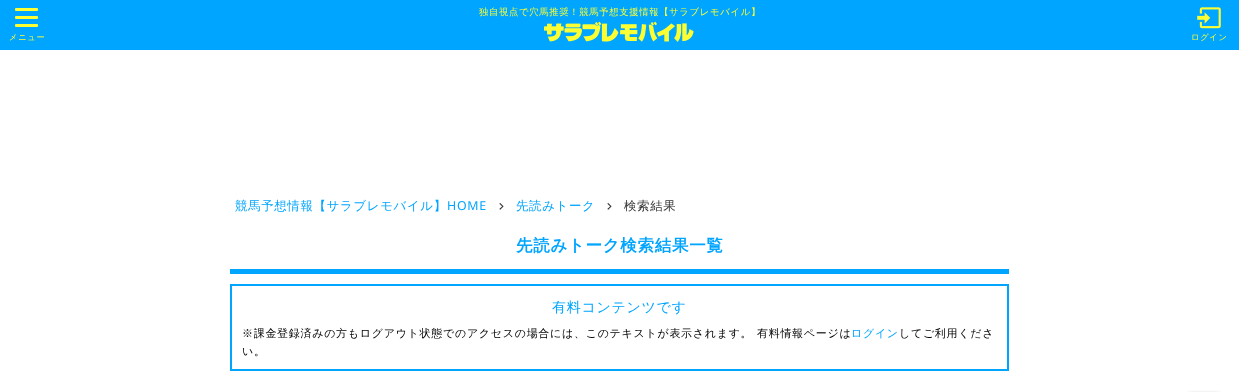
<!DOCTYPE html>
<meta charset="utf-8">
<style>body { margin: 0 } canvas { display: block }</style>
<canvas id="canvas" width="1239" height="392"></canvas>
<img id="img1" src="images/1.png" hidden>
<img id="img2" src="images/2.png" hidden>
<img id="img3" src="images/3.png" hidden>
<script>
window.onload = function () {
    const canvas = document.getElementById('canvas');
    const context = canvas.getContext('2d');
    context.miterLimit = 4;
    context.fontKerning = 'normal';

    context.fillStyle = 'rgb(255, 255, 255)';
    context.fillRect(0, 0, 1239, 392);
    context.fillStyle = 'rgb(0, 165, 255)';
    context.fillRect(0, 0, 1239, 50);
    context.drawImage(document.getElementById('img1'), 544, 21, 150, 21);
    context.fillStyle = 'rgb(252, 255, 50)';
    context.beginPath();
    context.roundRect(15, 16, 23, 3, 1);
    context.fill();
    context.beginPath();
    context.roundRect(15, 8, 23, 3, 1);
    context.fill();
    context.beginPath();
    context.roundRect(15, 24, 23, 3, 1);
    context.fill();
    context.drawImage(document.getElementById('img2'), 1197, 7, 24, 22);
    context.drawImage(document.getElementById('img3'), 499, 203, 5, 7);
    context.drawImage(document.getElementById('img3'), 607, 203, 5, 7);
    context.fillStyle = 'rgb(0, 165, 255)';
    context.fillRect(230, 269, 779, 5);
    context.strokeStyle = 'rgb(0, 165, 255)';
    context.lineWidth = 2;
    context.strokeRect(231, 285, 777, 85);
    context.fillStyle = 'rgba(0, 0, 0, 0.3)';
    context.filter = 'blur(1.5px)';
    context.beginPath();
    context.roundRect(1179, 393, 50, 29, 25);
    context.fill();
    context.filter = 'none';
    context.letterSpacing = '0.7px';
    context.font = '500 9.3px WenQuanYi Zen Hei';
    context.fillStyle = 'rgb(252, 255, 50)';
    context.fillText('独自視点で穴馬推奨！競馬予想支援情報【サラブレモバイル】', 479, 15);
    context.font = '500 8.25px WenQuanYi Zen Hei';
    context.fillText('メニュー', 9, 40);
    context.fillText('ログイン', 1191, 40);
    context.font = '500 12.4px WenQuanYi Zen Hei';
    context.fillStyle = 'rgb(0, 165, 255)';
    context.fillText('競馬予想情報【サラブレモバイル】', 235, 210);
    context.font = '12.4px Noto Sans';
    context.fillText('HOME', 447, 210);
    context.font = '500 12.4px WenQuanYi Zen Hei';
    context.fillText('先読みトーク', 516, 210);
    context.fillStyle = 'rgb(51, 51, 51)';
    context.fillText('検索結果', 624, 210);
    context.font = 'bold 16.5px WenQuanYi Zen Hei';
    context.fillStyle = 'rgb(0, 165, 255)';
    context.fillText('先読みトーク検索結果一覧', 516, 251);
    context.font = '500 14px WenQuanYi Zen Hei';
    context.fillText('有料コンテンツです', 552, 312);
    context.font = '500 11px WenQuanYi Zen Hei';
    context.fillStyle = 'rgb(0, 0, 0)';
    context.fillText('※課金登録済みの方もログアウト状態でのアクセスの場合には、このテキストが表示されます。', 242, 337);
    context.fillText('有料情報ページは', 757, 337);
    context.fillStyle = 'rgb(0, 165, 255)';
    context.fillText('ログイン', 851, 337);
    context.fillStyle = 'rgb(0, 0, 0)';
    context.fillText('してご利用くださ', 899, 337);
    context.fillText('い。', 242, 355);
};
</script>
